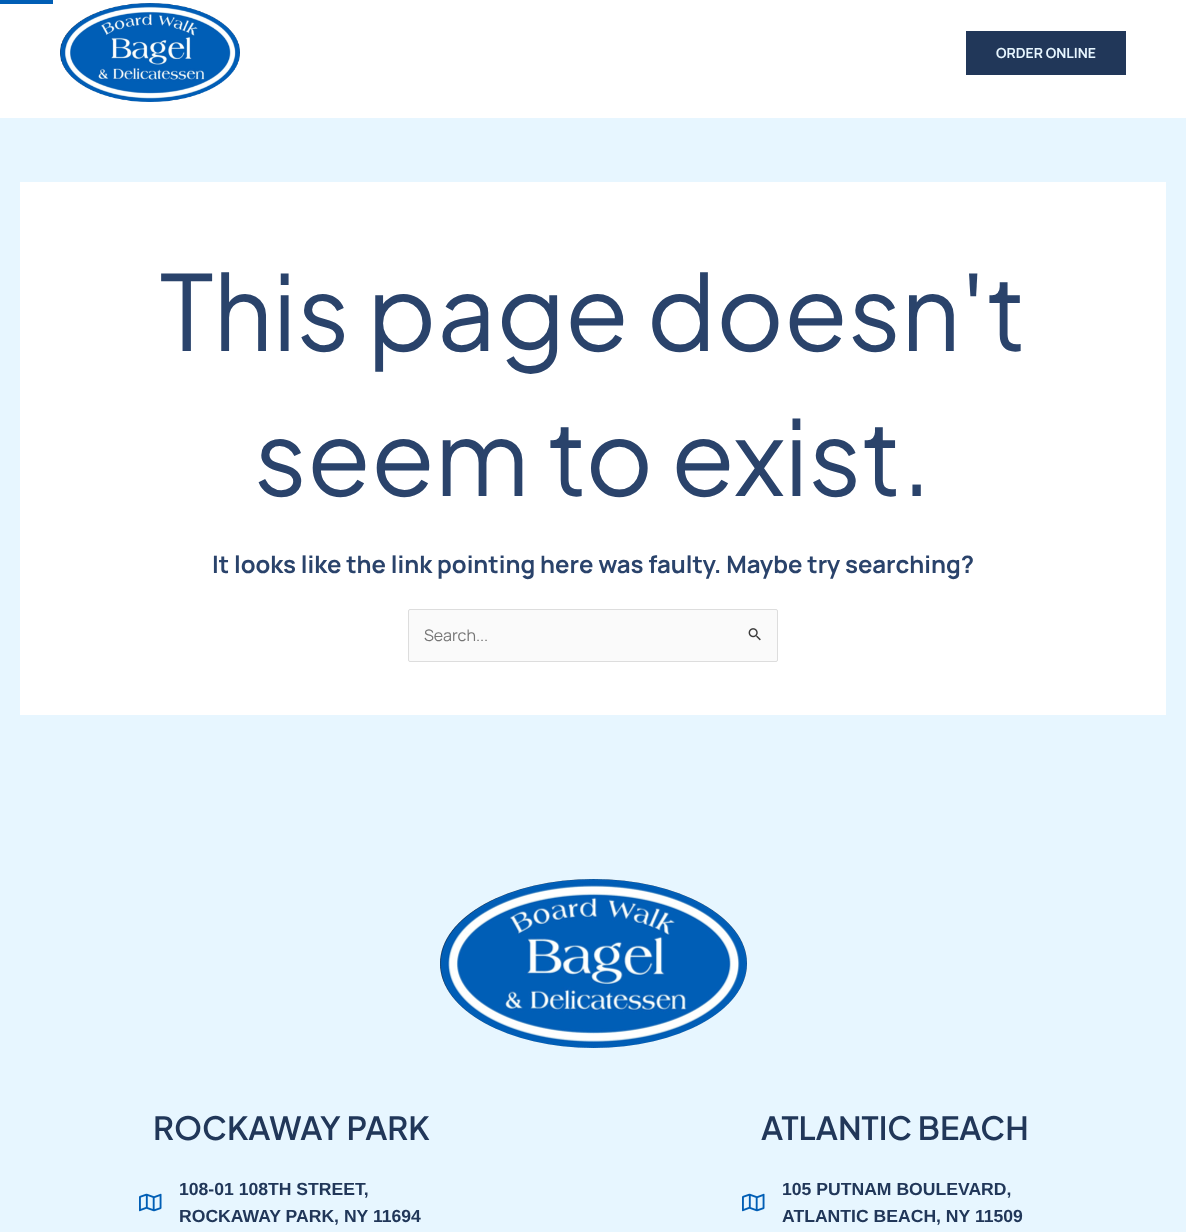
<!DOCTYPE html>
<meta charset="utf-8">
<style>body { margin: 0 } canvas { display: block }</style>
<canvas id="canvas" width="1186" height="1232"></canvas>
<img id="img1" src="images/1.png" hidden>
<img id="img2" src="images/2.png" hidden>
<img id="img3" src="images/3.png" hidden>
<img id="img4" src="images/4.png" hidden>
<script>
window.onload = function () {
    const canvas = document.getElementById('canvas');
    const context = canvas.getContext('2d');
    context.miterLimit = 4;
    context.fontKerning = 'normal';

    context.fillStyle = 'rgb(231, 246, 255)';
    context.fillRect(0, 0, 1186, 1232);
    context.fillStyle = 'rgb(255, 255, 255)';
    context.fillRect(0, 0, 1186, 118);
    context.fillStyle = 'rgb(1, 94, 181)';
    context.fillRect(0, 0, 53, 4);
    context.drawImage(document.getElementById('img1'), 60, 3, 180, 99);
    context.fillStyle = 'rgb(33, 55, 89)';
    context.fillRect(966, 31, 160, 44);
    context.fillStyle = 'rgb(255, 255, 255)';
    context.fillRect(20, 182, 1146, 533);
    context.fillStyle = 'rgb(250, 250, 250)';
    context.beginPath();
    context.roundRect(408.5, 609.5, 369, 52, 1.5);
    context.fill();
    context.strokeStyle = 'rgb(221, 221, 221)';
    context.stroke();
    context.drawImage(document.getElementById('img2'), 748, 628, 13, 13);
    context.drawImage(document.getElementById('img3'), 440, 879, 307, 169);
    context.drawImage(document.getElementById('img4'), 139, 1193, 23, 19);
    context.drawImage(document.getElementById('img4'), 742, 1193, 23, 19);
    context.font = 'bold 14px Manrope';
    context.fillStyle = 'rgb(231, 246, 255)';
    context.fillText('ORDER ONLINE', 996, 58);
    context.font = '104px Plus Jakarta Sans';
    context.fillStyle = 'rgb(42, 67, 107)';
    context.fillText('This page doesn\'t', 160, 351);
    context.fillText('seem to exist.', 254, 496);
    context.font = 'bold 24px Manrope';
    context.fillText('It looks like the link pointing here was faulty. Maybe try searching?', 212, 573);
    context.font = '16px Manrope';
    context.fillStyle = 'rgb(117, 117, 117)';
    context.fillText('Search...', 424, 641);
    context.font = '600 32px Plus Jakarta Sans';
    context.fillStyle = 'rgb(33, 55, 89)';
    context.fillText('ROCKAWAY PARK', 153, 1140);
    context.font = 'bold 17.6px Liberation Sans';
    context.fillText('108-01 108TH STREET,', 179, 1195);
    context.fillText('ROCKAWAY PARK, NY 11694', 179, 1222);
    context.font = '600 32px Plus Jakarta Sans';
    context.fillText('ATLANTIC BEACH', 761, 1140);
    context.font = 'bold 17.6px Liberation Sans';
    context.fillText('105 PUTNAM BOULEVARD,', 782, 1195);
    context.fillText('ATLANTIC BEACH, NY 11509', 782, 1222);
};
</script>
